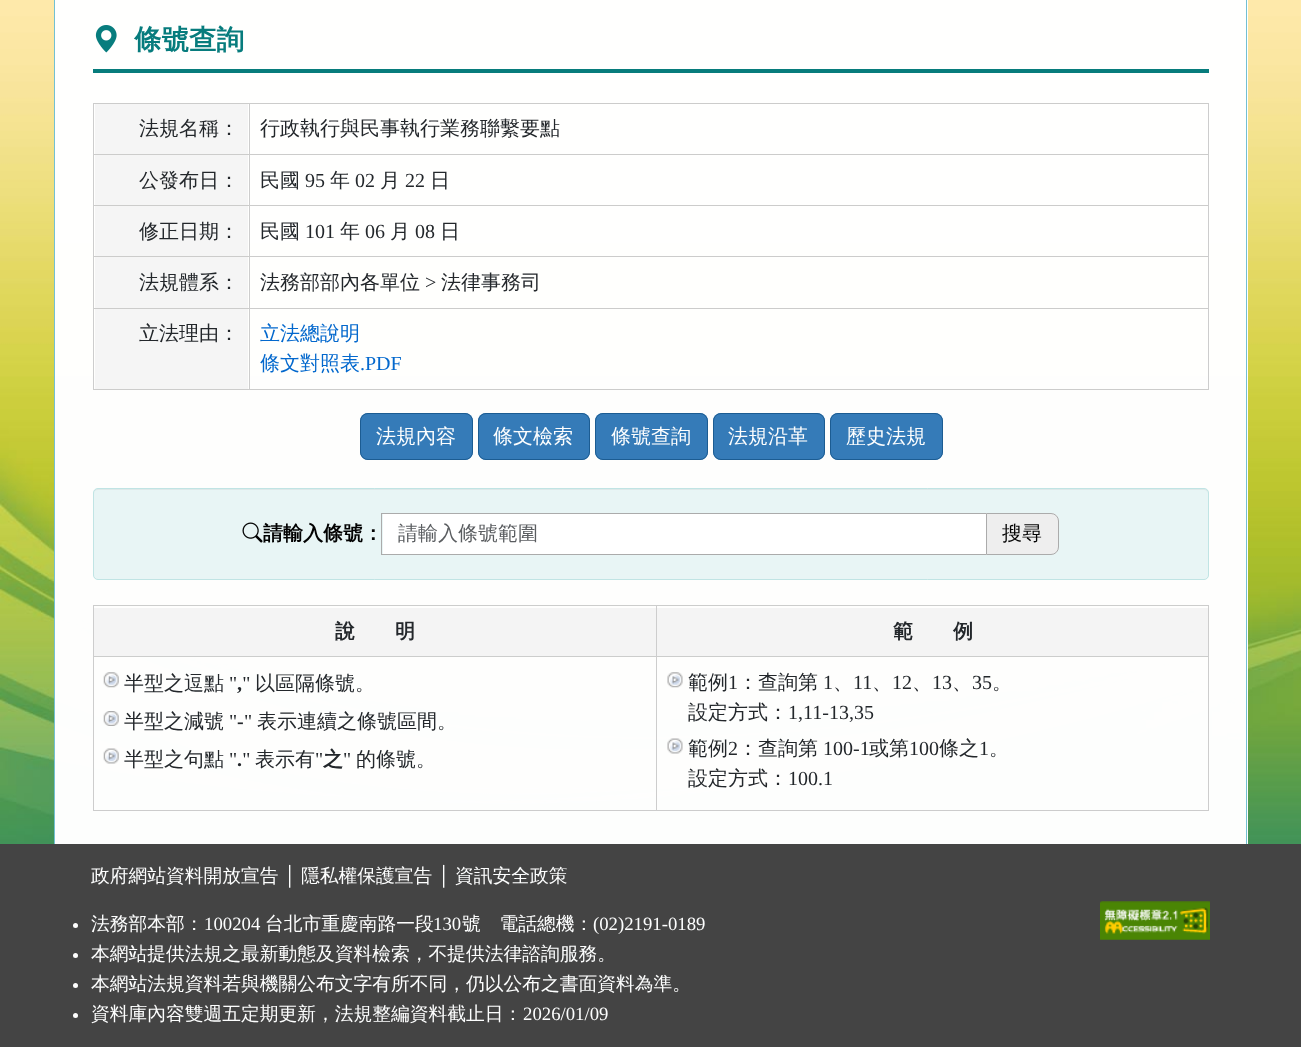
<!DOCTYPE html>
<meta charset="utf-8">
<style>body { margin: 0 } canvas { display: block }</style>
<canvas id="canvas" width="1301" height="1047"></canvas>
<img id="img1" src="images/1.png" hidden>
<img id="img2" src="images/2.png" hidden>
<img id="img3" src="images/3.png" hidden>
<img id="img4" src="images/4.png" hidden>
<img id="img5" src="images/5.png" hidden>
<img id="img6" src="images/6.png" hidden>
<img id="img7" src="images/7.png" hidden>
<img id="img8" src="images/8.png" hidden>
<img id="img9" src="images/9.png" hidden>
<script>
window.onload = function () {
    const canvas = document.getElementById('canvas');
    const context = canvas.getContext('2d');
    context.miterLimit = 4;
    context.fontKerning = 'normal';

    context.fillStyle = 'rgb(68, 68, 68)';
    context.fillRect(0, 0, 1301, 1047);
    context.drawImage(document.getElementById('img1'), 0, 0, 1301, 844);
    context.fillStyle = 'rgb(114, 192, 210)';
    context.fillRect(1246, 0, 1, 844);
    context.fillRect(54, 0, 1, 844);
    context.fillStyle = 'rgb(7, 124, 124)';
    context.fillRect(93, 69, 1116, 4);
    context.drawImage(document.getElementById('img2'), 95, 25, 22, 28);
    context.fillStyle = 'rgb(204, 204, 203)';
    context.fillRect(93, 103, 1116, 1);
    context.fillStyle = 'rgb(245, 245, 245)';
    context.fillRect(95, 104, 153, 50);
    context.fillStyle = 'rgb(204, 204, 203)';
    context.fillRect(93, 154, 1116, 1);
    context.fillRect(93, 205, 1116, 1);
    context.fillStyle = 'rgb(245, 245, 245)';
    context.fillRect(95, 206, 153, 102);
    context.fillStyle = 'rgb(204, 204, 203)';
    context.fillRect(93, 256, 1116, 1);
    context.fillRect(93, 308, 1116, 1);
    context.fillRect(93, 389, 1116, 1);
    context.fillStyle = 'rgba(204, 204, 204, 0.99)';
    context.fillRect(93, 308, 1, 82);
    context.fillRect(93, 256, 1, 53);
    context.fillRect(93, 205, 1, 53);
    context.fillRect(93, 154, 1, 52);
    context.fillRect(93, 103, 1, 52);
    context.fillRect(1208, 308, 1, 82);
    context.fillRect(1208, 256, 1, 53);
    context.fillRect(1208, 205, 1, 53);
    context.fillRect(1208, 154, 1, 52);
    context.fillRect(1208, 103, 1, 52);
    context.fillRect(249, 308, 1, 82);
    context.fillRect(249, 256, 1, 53);
    context.fillRect(249, 205, 1, 53);
    context.fillRect(249, 154, 1, 52);
    context.fillRect(249, 103, 1, 52);
    context.fillStyle = 'rgb(245, 245, 245)';
    context.fillRect(95, 155, 153, 50);
    context.fillRect(95, 309, 153, 80);
    context.fillStyle = 'rgb(53, 123, 184)';
    context.beginPath();
    context.roundRect(360, 413, 113, 47, 8);
    context.fill();
    context.beginPath();
    context.roundRect(360.5, 413.5, 112, 46, 7.5);
    context.strokeStyle = 'rgba(28, 92, 146, 0.99)';
    context.stroke();
    context.beginPath();
    context.roundRect(478, 413, 112, 47, 8);
    context.fill();
    context.beginPath();
    context.roundRect(478.5, 413.5, 111, 46, 7.5);
    context.stroke();
    context.beginPath();
    context.roundRect(595, 413, 113, 47, 8);
    context.fill();
    context.beginPath();
    context.roundRect(595.5, 413.5, 112, 46, 7.5);
    context.stroke();
    context.beginPath();
    context.roundRect(713, 413, 112, 47, 8);
    context.fill();
    context.beginPath();
    context.roundRect(713.5, 413.5, 111, 46, 7.5);
    context.stroke();
    context.beginPath();
    context.roundRect(830, 413, 113, 47, 8);
    context.fill();
    context.beginPath();
    context.roundRect(830.5, 413.5, 112, 46, 7.5);
    context.stroke();
    context.fillStyle = 'rgb(232, 245, 245)';
    context.beginPath();
    context.roundRect(93, 488, 1116, 92, 5);
    context.fill();
    context.fillStyle = 'rgb(221, 233, 233)';
    context.beginPath();
    context.moveTo(98, 490);
    context.lineTo(1204, 490);
    context.bezierCurveTo(1206, 490, 1208, 492, 1208, 494);
    context.bezierCurveTo(1208, 491, 1207, 489, 1204, 489);
    context.lineTo(98, 489);
    context.bezierCurveTo(95, 489, 94, 491, 94, 494);
    context.bezierCurveTo(94, 492, 95, 490, 98, 490);
    context.closePath();
    context.fill();
    context.beginPath();
    context.roundRect(93.5, 488.5, 1115, 91, 4.5);
    context.strokeStyle = 'rgba(191, 228, 228, 0.99)';
    context.stroke();
    context.drawImage(document.getElementById('img3'), 242, 522, 21, 21);
    context.fillStyle = 'rgb(255, 255, 255)';
    context.fillRect(383, 514, 603, 40);
    context.strokeStyle = 'rgb(171, 171, 171)';
    context.strokeRect(381.5, 513.5, 606, 41);
    context.fillStyle = 'rgba(238, 238, 238, 0.99)';
    context.beginPath();
    context.roundRect(986, 513, 73, 42, [0, 8, 8, 0]);
    context.fill();
    context.beginPath();
    context.roundRect(986.5, 513.5, 72, 41, [0, 7.5, 7.5, 0]);
    context.strokeStyle = 'rgba(170, 170, 170, 0.99)';
    context.stroke();
    context.fillStyle = 'rgb(244, 244, 244)';
    context.fillRect(94, 608, 1115, 48);
    context.fillStyle = 'rgb(204, 205, 204)';
    context.fillRect(93, 605, 1116, 1);
    context.fillRect(93, 656, 1116, 1);
    context.fillStyle = 'rgb(204, 204, 204)';
    context.fillRect(93, 810, 1116, 1);
    context.fillStyle = 'rgba(204, 204, 204, 0.99)';
    context.fillRect(93, 656, 1, 155);
    context.fillRect(93, 605, 1, 53);
    context.fillRect(1208, 656, 1, 155);
    context.fillRect(1208, 605, 1, 53);
    context.fillRect(656, 656, 1, 155);
    context.fillRect(656, 605, 1, 53);
    context.drawImage(document.getElementById('img4'), 103, 672, 16, 16);
    context.drawImage(document.getElementById('img5'), 103, 711, 16, 15);
    context.drawImage(document.getElementById('img6'), 103, 748, 16, 16);
    context.drawImage(document.getElementById('img7'), 667, 672, 16, 16);
    context.drawImage(document.getElementById('img8'), 667, 738, 16, 16);
    context.fillStyle = 'rgb(255, 255, 255)';
    context.beginPath();
    context.arc(75.5, 925.5, 2.5, 0, 2 * Math.PI);
    context.fill();
    context.beginPath();
    context.arc(75.5, 955.5, 2.5, 0, 2 * Math.PI);
    context.fill();
    context.beginPath();
    context.arc(75.5, 985.5, 2.5, 0, 2 * Math.PI);
    context.fill();
    context.beginPath();
    context.arc(75.5, 1015.5, 2.5, 0, 2 * Math.PI);
    context.fill();
    context.drawImage(document.getElementById('img9'), 1100, 901, 110, 39);
    context.font = 'bold 27.5px WenQuanYi Zen Hei';
    context.fillStyle = 'rgb(7, 124, 125)';
    context.fillText('條號查詢', 134, 49);
    context.font = '500 20px WenQuanYi Zen Hei';
    context.fillStyle = 'rgb(35, 39, 43)';
    context.fillText('法規名稱：', 139, 135);
    context.fillText('行政執行與民事執行業務聯繫要點', 260, 135);
    context.fillText('公發布日：', 139, 187);
    context.fillText('民國', 260, 187);
    context.font = '20px Liberation Serif';
    context.fillText('95', 305, 187);
    context.font = '500 20px WenQuanYi Zen Hei';
    context.fillText('年', 330, 187);
    context.font = '20px Liberation Serif';
    context.fillText('02', 355, 187);
    context.font = '500 20px WenQuanYi Zen Hei';
    context.fillText('月', 380, 187);
    context.font = '20px Liberation Serif';
    context.fillText('22', 405, 187);
    context.font = '500 20px WenQuanYi Zen Hei';
    context.fillText('日', 430, 187);
    context.fillText('修正日期：', 139, 238);
    context.fillText('民國', 260, 238);
    context.font = '20px Liberation Serif';
    context.fillText('101', 305, 238);
    context.font = '500 20px WenQuanYi Zen Hei';
    context.fillText('年', 340, 238);
    context.font = '20px Liberation Serif';
    context.fillText('06', 365, 238);
    context.font = '500 20px WenQuanYi Zen Hei';
    context.fillText('月', 390, 238);
    context.font = '20px Liberation Serif';
    context.fillText('08', 415, 238);
    context.font = '500 20px WenQuanYi Zen Hei';
    context.fillText('日', 440, 238);
    context.fillText('法規體系：', 139, 289);
    context.fillText('法務部部內各單位', 260, 289);
    context.font = '20px Liberation Serif';
    context.fillText('>', 425, 289);
    context.font = '500 20px WenQuanYi Zen Hei';
    context.fillText('法律事務司', 441, 289);
    context.fillText('立法理由：', 139, 340);
    context.fillStyle = 'rgb(3, 104, 205)';
    context.fillText('立法總說明', 260, 340);
    context.fillText('條文對照表', 260, 370);
    context.font = '20px Liberation Serif';
    context.fillText('.PDF', 360, 370);
    context.font = '500 20px WenQuanYi Zen Hei';
    context.fillStyle = 'rgb(253, 254, 254)';
    context.fillText('法規內容', 376, 443);
    context.fillText('條文檢索', 493, 443);
    context.fillText('條號查詢', 611, 443);
    context.fillText('法規沿革', 728, 443);
    context.fillText('歷史法規', 846, 443);
    context.font = 'bold 20px WenQuanYi Zen Hei';
    context.fillStyle = 'rgb(2, 2, 2)';
    context.fillText('請輸入條號：', 263, 540);
    context.font = '500 20px WenQuanYi Zen Hei';
    context.fillStyle = 'rgb(90, 93, 96)';
    context.fillText('請輸入條號範圍', 398, 540);
    context.fillStyle = 'rgb(2, 2, 2)';
    context.fillText('搜尋', 1002, 540);
    context.font = 'bold 20px WenQuanYi Zen Hei';
    context.fillStyle = 'rgb(35, 39, 43)';
    context.fillText('說　　明', 335, 638);
    context.fillText('範　　例', 893, 638);
    context.font = '500 20px WenQuanYi Zen Hei';
    context.fillText('半型之逗點', 124, 690);
    context.font = '20px Liberation Serif';
    context.fillText('" "', 229, 690);
    context.font = '500 20px WenQuanYi Zen Hei';
    context.fillText('以區隔條號。', 255, 690);
    context.font = 'bold 20px Liberation Serif';
    context.fillText(',', 237, 690);
    context.font = '500 20px WenQuanYi Zen Hei';
    context.fillText('半型之減號', 124, 728);
    context.font = '20px Liberation Serif';
    context.fillText('"', 229, 728);
    context.fillText('"', 244, 728);
    context.font = '500 20px WenQuanYi Zen Hei';
    context.fillText('表示連續之條號區間。', 257, 728);
    context.font = 'bold 20px Liberation Serif';
    context.fillText('-', 237, 728);
    context.font = '500 20px WenQuanYi Zen Hei';
    context.fillText('半型之句點', 124, 766);
    context.font = '20px Liberation Serif';
    context.fillText('" "', 229, 766);
    context.font = '500 20px WenQuanYi Zen Hei';
    context.fillText('表示有', 255, 766);
    context.font = '20px Liberation Serif';
    context.fillText('"', 315, 766);
    context.font = 'bold 20px WenQuanYi Zen Hei';
    context.fillText('之', 323, 766);
    context.font = '20px Liberation Serif';
    context.fillText('"', 343, 766);
    context.font = '500 20px WenQuanYi Zen Hei';
    context.fillText('的條號。', 356, 766);
    context.font = 'bold 20px Liberation Serif';
    context.fillText('.', 237, 766);
    context.font = '500 20px WenQuanYi Zen Hei';
    context.fillText('範例', 688, 689);
    context.font = '20px Liberation Serif';
    context.fillText('1', 728, 689);
    context.font = '500 20px WenQuanYi Zen Hei';
    context.fillText('：查詢第', 738, 689);
    context.font = '20px Liberation Serif';
    context.fillText('1', 823, 689);
    context.font = '500 20px WenQuanYi Zen Hei';
    context.fillText('、', 833, 689);
    context.font = '20px Liberation Serif';
    context.fillText('11', 853, 689);
    context.font = '500 20px WenQuanYi Zen Hei';
    context.fillText('、', 872, 689);
    context.font = '20px Liberation Serif';
    context.fillText('12', 892, 689);
    context.font = '500 20px WenQuanYi Zen Hei';
    context.fillText('、', 912, 689);
    context.font = '20px Liberation Serif';
    context.fillText('13', 932, 689);
    context.font = '500 20px WenQuanYi Zen Hei';
    context.fillText('、', 952, 689);
    context.font = '20px Liberation Serif';
    context.fillText('35', 972, 689);
    context.font = '500 20px WenQuanYi Zen Hei';
    context.fillText('。', 992, 689);
    context.fillText('設定方式：', 688, 719);
    context.font = '20px Liberation Serif';
    context.fillText('1,11-13,35', 788, 719);
    context.font = '500 20px WenQuanYi Zen Hei';
    context.fillText('範例', 688, 755);
    context.font = '20px Liberation Serif';
    context.fillText('2', 728, 755);
    context.font = '500 20px WenQuanYi Zen Hei';
    context.fillText('：查詢第', 738, 755);
    context.font = '20px Liberation Serif';
    context.fillText('100-1', 823, 755);
    context.font = '500 20px WenQuanYi Zen Hei';
    context.fillText('或第', 869, 755);
    context.font = '20px Liberation Serif';
    context.fillText('100', 909, 755);
    context.font = '500 20px WenQuanYi Zen Hei';
    context.fillText('條之', 939, 755);
    context.font = '20px Liberation Serif';
    context.fillText('1', 979, 755);
    context.font = '500 20px WenQuanYi Zen Hei';
    context.fillText('。', 989, 755);
    context.fillText('設定方式：', 688, 785);
    context.font = '20px Liberation Serif';
    context.fillText('100.1', 788, 785);
    context.font = '500 18.75px WenQuanYi Zen Hei';
    context.fillStyle = 'rgb(253, 254, 254)';
    context.fillText('政府網站資料開放宣告', 91, 882);
    context.font = '18.75px Liberation Serif';
    context.fillText('│', 283, 882);
    context.font = '500 18.75px WenQuanYi Zen Hei';
    context.fillText('隱私權保護宣告', 301, 882);
    context.font = '18.75px Liberation Serif';
    context.fillText('│', 437, 882);
    context.font = '500 18.75px WenQuanYi Zen Hei';
    context.fillText('資訊安全政策', 455, 882);
    context.fillText('法務部本部：', 91, 930);
    context.font = '18.75px Liberation Serif';
    context.fillText('100204', 204, 930);
    context.font = '500 18.75px WenQuanYi Zen Hei';
    context.fillText('台北市重慶南路一段', 265, 930);
    context.font = '18.75px Liberation Serif';
    context.fillText('130', 433, 930);
    context.font = '500 18.75px WenQuanYi Zen Hei';
    context.fillText('號　電話總機：', 462, 930);
    context.font = '18.75px Liberation Serif';
    context.fillText('(02)2191-0189', 593, 930);
    context.font = '500 18.75px WenQuanYi Zen Hei';
    context.fillText('本網站提供法規之最新動態及資料檢索，不提供法律諮詢服務。', 91, 960);
    context.fillText('本網站法規資料若與機關公布文字有所不同，仍以公布之書面資料為準。', 91, 990);
    context.fillText('資料庫內容雙週五定期更新，法規整編資料截止日：', 91, 1020);
    context.font = '18.75px Liberation Serif';
    context.fillText('2026/01/09', 523, 1020);
};
</script>
